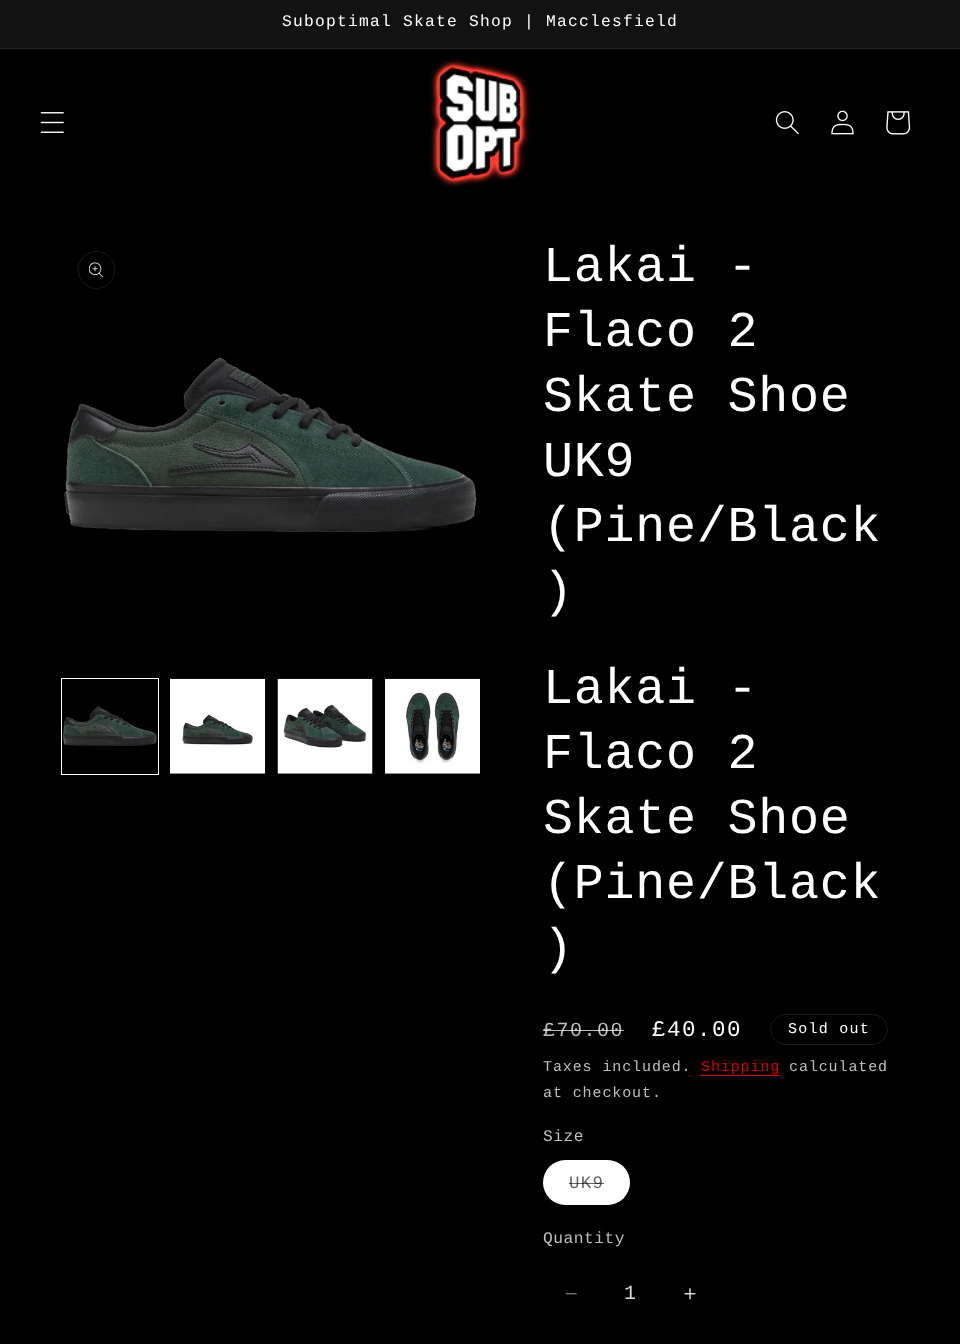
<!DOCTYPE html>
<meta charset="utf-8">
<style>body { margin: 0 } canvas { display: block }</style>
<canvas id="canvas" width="960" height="1344"></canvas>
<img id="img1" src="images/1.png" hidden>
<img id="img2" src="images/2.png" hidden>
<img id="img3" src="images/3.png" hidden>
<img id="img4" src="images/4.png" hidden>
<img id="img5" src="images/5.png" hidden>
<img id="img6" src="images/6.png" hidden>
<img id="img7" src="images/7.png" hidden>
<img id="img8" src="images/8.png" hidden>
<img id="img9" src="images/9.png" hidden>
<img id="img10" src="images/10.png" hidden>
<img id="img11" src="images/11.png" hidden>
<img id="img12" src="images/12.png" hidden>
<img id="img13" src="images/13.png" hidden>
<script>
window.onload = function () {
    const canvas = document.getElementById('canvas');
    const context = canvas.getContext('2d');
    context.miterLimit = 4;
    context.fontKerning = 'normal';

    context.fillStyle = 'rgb(0, 0, 0)';
    context.fillRect(0, 0, 960, 1344);
    context.fillStyle = 'rgb(18, 18, 18)';
    context.fillRect(0, 0, 960, 48);
    context.fillStyle = 'rgb(37, 37, 37)';
    context.fillRect(0, 48, 960, 1);
    context.drawImage(document.getElementById('img1'), 40, 112, 24, 21);
    context.drawImage(document.getElementById('img2'), 430, 59, 100, 128);
    context.drawImage(document.getElementById('img3'), 775, 111, 24, 24);
    context.drawImage(document.getElementById('img4'), 831, 110, 23, 25);
    context.drawImage(document.getElementById('img5'), 886, 111, 25, 24);
    context.beginPath();
    context.roundRect(78.5, 251.5, 36, 37, 18);
    context.strokeStyle = 'rgb(26, 26, 26)';
    context.stroke();
    context.drawImage(document.getElementById('img6'), 89, 262, 15, 16);
    context.drawImage(document.getElementById('img7'), 64, 357, 413, 175);
    context.strokeStyle = 'rgb(255, 255, 255)';
    context.strokeRect(61.5, 678.5, 97, 96);
    context.drawImage(document.getElementById('img8'), 63, 706, 94, 40);
    context.drawImage(document.getElementById('img9'), 170, 678, 95, 96);
    context.drawImage(document.getElementById('img10'), 277, 678, 96, 96);
    context.drawImage(document.getElementById('img11'), 385, 678, 95, 96);
    context.beginPath();
    context.roundRect(770.5, 1014.5, 117, 30, 15);
    context.strokeStyle = 'rgb(26, 26, 26)';
    context.stroke();
    context.fillStyle = 'rgb(217, 0, 0)';
    context.fillRect(700, 1075, 80, 1);
    context.fillStyle = 'rgb(255, 255, 255)';
    context.beginPath();
    context.roundRect(543, 1160, 87, 45, 22.5);
    context.fill();
    context.beginPath();
    context.roundRect(543.5, 1160.5, 86, 44, 22);
    context.strokeStyle = 'rgba(255, 255, 255, 0.1)';
    context.stroke();
    context.drawImage(document.getElementById('img12'), 565, 1293, 12, 2);
    context.drawImage(document.getElementById('img13'), 684, 1288, 12, 12);
    context.letterSpacing = '1.25px';
    context.font = '16.25px Liberation Mono';
    context.fillText('Suboptimal Skate Shop | Macclesfield', 282, 26);
    context.letterSpacing = '0.75px';
    context.font = '50px Liberation Mono';
    context.fillText('Lakai -', 543, 281);
    context.fillText('Flaco 2', 543, 346);
    context.fillText('Skate Shoe', 543, 411);
    context.fillText('UK9', 543, 476);
    context.fillText('(Pine/Black', 543, 541);
    context.fillText(')', 543, 606);
    context.fillText('Lakai -', 543, 703);
    context.fillText('Flaco 2', 543, 768);
    context.fillText('Skate Shoe', 543, 833);
    context.fillText('(Pine/Black', 543, 898);
    context.fillText(')', 543, 963);
    context.letterSpacing = '1.5px';
    context.font = '20px Liberation Mono';
    context.fillStyle = 'rgb(191, 191, 191)';
    context.fillText('£70.00', 543, 1036);
    context.fillStyle = 'rgba(255, 255, 255, 0.75)';
    context.fillRect(543, 1030, 81, 1);
    context.font = '22.5px Liberation Mono';
    context.fillStyle = 'rgb(255, 255, 255)';
    context.fillText('£40.00', 652, 1036);
    context.letterSpacing = '1.25px';
    context.font = '15px Liberation Mono';
    context.fillText('Sold out', 788, 1033);
    context.letterSpacing = '0.9px';
    context.fillStyle = 'rgb(191, 191, 191)';
    context.fillText('Taxes included.', 543, 1071);
    context.fillStyle = 'rgb(217, 0, 0)';
    context.fillText('Shipping', 701, 1071);
    context.fillStyle = 'rgb(191, 191, 191)';
    context.fillText('calculated', 789, 1071);
    context.fillText('at checkout.', 543, 1097);
    context.letterSpacing = '0.5px';
    context.font = '16.25px Liberation Mono';
    context.fillText('Size', 543, 1141);
    context.letterSpacing = '1.25px';
    context.font = '17.5px Liberation Mono';
    context.fillStyle = 'rgb(102, 102, 102)';
    context.fillText('UK9', 569, 1188);
    context.fillStyle = 'rgba(0, 0, 0, 0.6)';
    context.fillRect(569, 1183, 35, 1);
    context.letterSpacing = '0.5px';
    context.font = '16.25px Liberation Mono';
    context.fillStyle = 'rgb(191, 191, 191)';
    context.fillText('Quantity', 543, 1243);
    context.letterSpacing = '0px';
    context.font = '20px Liberation Mono';
    context.fillStyle = 'rgb(217, 217, 217)';
    context.fillText('1', 624, 1299);
};
</script>
